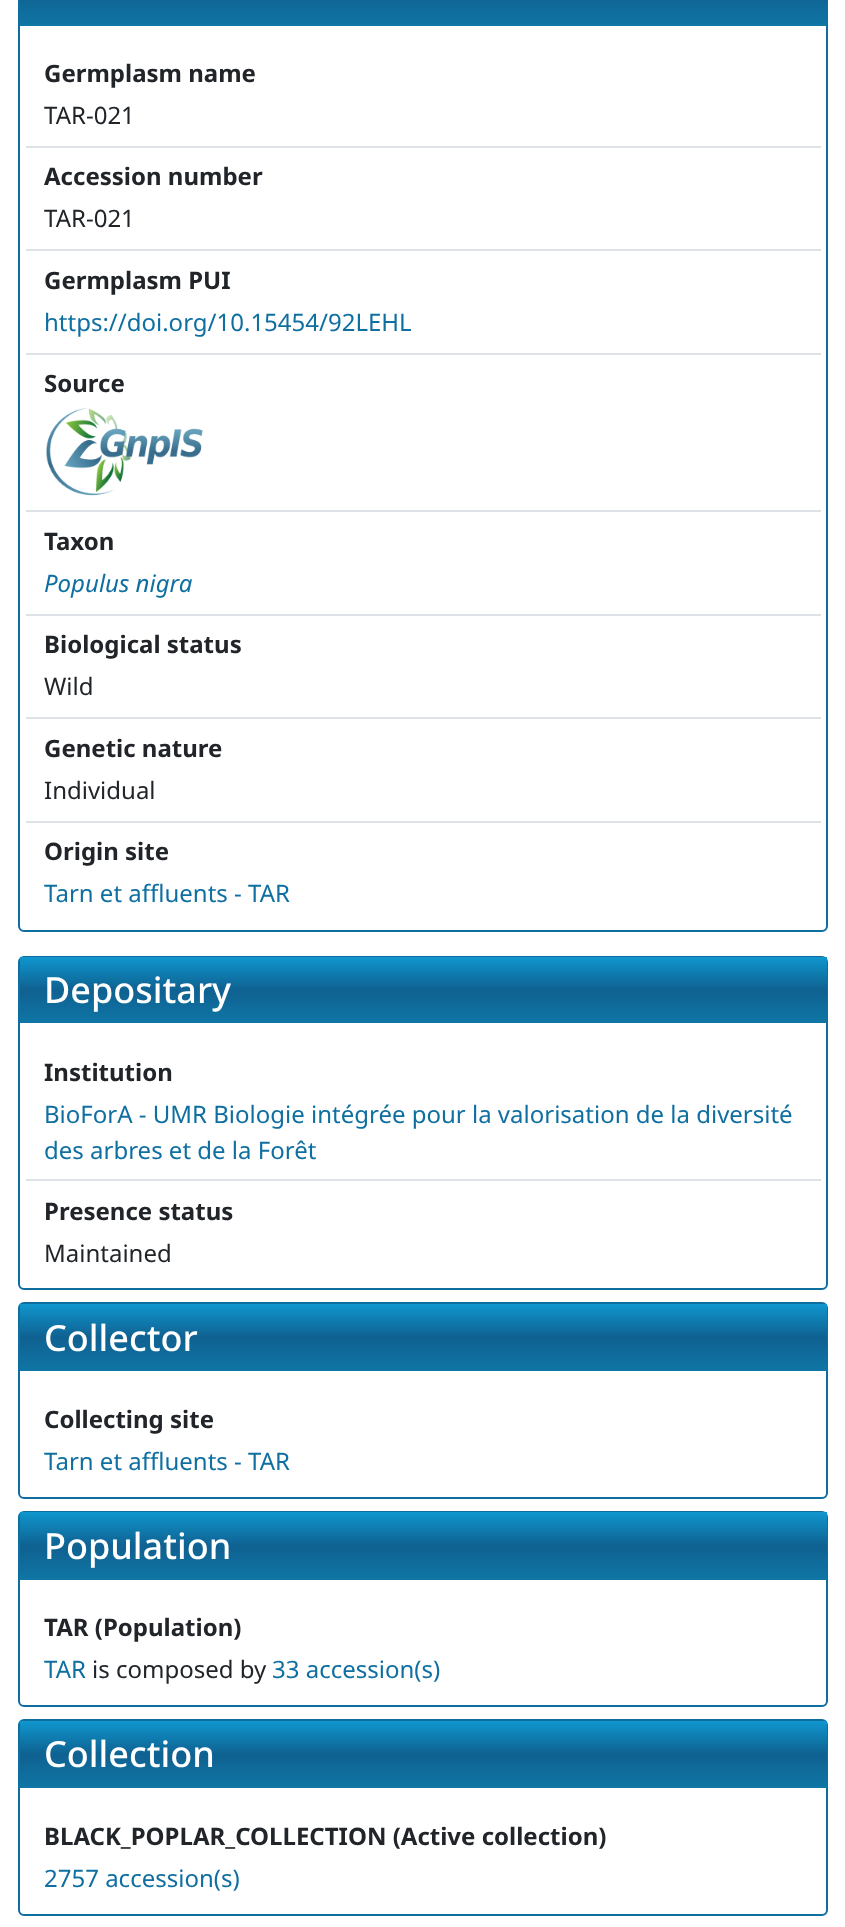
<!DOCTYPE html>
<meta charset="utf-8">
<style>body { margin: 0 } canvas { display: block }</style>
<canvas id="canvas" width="845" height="1927"></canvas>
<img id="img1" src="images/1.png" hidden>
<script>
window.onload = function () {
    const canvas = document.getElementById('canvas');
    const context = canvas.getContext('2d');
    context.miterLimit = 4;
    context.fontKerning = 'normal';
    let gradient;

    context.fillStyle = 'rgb(255, 255, 255)';
    context.fillRect(0, 0, 845, 1927);
    context.beginPath();
    context.roundRect(19, -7, 808, 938, 5);
    context.strokeStyle = 'rgb(15, 110, 159)';
    context.lineWidth = 2;
    context.stroke();
    gradient = context.createLinearGradient(423, -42, 423, 26);
    gradient.addColorStop(0, 'rgb(15, 150, 205)');
    gradient.addColorStop(0.5, 'rgb(15, 97, 145)');
    gradient.addColorStop(1, 'rgb(15, 118, 165)');
    context.fillStyle = gradient;
    context.fillRect(20, 0, 807, 26);
    context.fillStyle = 'rgb(222, 226, 230)';
    context.fillRect(26, 146, 795, 2);
    context.fillRect(26, 249, 795, 2);
    context.fillRect(26, 353, 795, 2);
    context.drawImage(document.getElementById('img1'), 46, 408, 157, 88);
    context.fillRect(26, 510, 795, 2);
    context.fillRect(26, 614, 795, 2);
    context.fillRect(26, 717, 795, 2);
    context.fillRect(26, 821, 795, 2);
    context.beginPath();
    context.roundRect(19, 957, 808, 332, 5);
    context.stroke();
    gradient = context.createLinearGradient(423, 957, 423, 1023);
    gradient.addColorStop(0, 'rgb(15, 150, 205)');
    gradient.addColorStop(0.5, 'rgb(15, 97, 145)');
    gradient.addColorStop(1, 'rgb(15, 118, 165)');
    context.fillStyle = gradient;
    context.fillRect(20, 957, 807, 66);
    context.fillStyle = 'rgb(222, 226, 230)';
    context.fillRect(26, 1179, 795, 2);
    context.beginPath();
    context.roundRect(19, 1303, 808, 195, 5);
    context.stroke();
    gradient = context.createLinearGradient(423, 1304, 423, 1371);
    gradient.addColorStop(0, 'rgb(15, 150, 205)');
    gradient.addColorStop(0.5, 'rgb(15, 97, 145)');
    gradient.addColorStop(1, 'rgb(15, 118, 165)');
    context.fillStyle = gradient;
    context.fillRect(20, 1304, 807, 67);
    context.beginPath();
    context.roundRect(19, 1512, 808, 194, 5);
    context.stroke();
    gradient = context.createLinearGradient(423, 1512, 423, 1580);
    gradient.addColorStop(0, 'rgb(15, 150, 205)');
    gradient.addColorStop(0.5, 'rgb(15, 97, 145)');
    gradient.addColorStop(1, 'rgb(15, 118, 165)');
    context.fillStyle = gradient;
    context.fillRect(20, 1512, 807, 68);
    context.beginPath();
    context.roundRect(19, 1720, 808, 195, 5);
    context.stroke();
    gradient = context.createLinearGradient(423, 1721, 423, 1788);
    gradient.addColorStop(0, 'rgb(15, 150, 205)');
    gradient.addColorStop(0.5, 'rgb(15, 97, 145)');
    gradient.addColorStop(1, 'rgb(15, 118, 165)');
    context.fillStyle = gradient;
    context.fillRect(20, 1721, 807, 67);
    context.font = 'bold 24px Noto Sans';
    context.fillStyle = 'rgb(33, 37, 41)';
    context.fillText('Germplasm name', 44, 82);
    context.font = '24px Noto Sans';
    context.fillText('TAR-021', 44, 124);
    context.font = 'bold 24px Noto Sans';
    context.fillText('Accession number', 44, 185);
    context.font = '24px Noto Sans';
    context.fillText('TAR-021', 44, 227);
    context.font = 'bold 24px Noto Sans';
    context.fillText('Germplasm PUI', 44, 289);
    context.font = '24px Noto Sans';
    context.fillStyle = 'rgb(15, 111, 161)';
    context.fillText('https://doi.org/10.15454/92LEHL', 44, 331);
    context.font = 'bold 24px Noto Sans';
    context.fillStyle = 'rgb(33, 37, 41)';
    context.fillText('Source', 44, 392);
    context.fillText('Taxon', 44, 550);
    context.font = 'italic 24px Noto Sans';
    context.fillStyle = 'rgb(15, 111, 161)';
    context.fillText('Populus nigra', 44, 592);
    context.font = 'bold 24px Noto Sans';
    context.fillStyle = 'rgb(33, 37, 41)';
    context.fillText('Biological status', 44, 653);
    context.font = '24px Noto Sans';
    context.fillText('Wild', 44, 695);
    context.font = 'bold 24px Noto Sans';
    context.fillText('Genetic nature', 44, 757);
    context.font = '24px Noto Sans';
    context.fillText('Individual', 44, 799);
    context.font = 'bold 24px Noto Sans';
    context.fillText('Origin site', 44, 860);
    context.font = '24px Noto Sans';
    context.fillStyle = 'rgb(15, 111, 161)';
    context.fillText('Tarn et affluents - TAR', 44, 902);
    context.font = '500 36px Noto Sans';
    context.fillStyle = 'rgb(255, 255, 255)';
    context.fillText('Depositary', 44, 1003);
    context.font = 'bold 24px Noto Sans';
    context.fillStyle = 'rgb(33, 37, 41)';
    context.fillText('Institution', 44, 1081);
    context.font = '24px Noto Sans';
    context.fillStyle = 'rgb(15, 111, 161)';
    context.fillText('BioForA - UMR Biologie intégrée pour la valorisation de la diversité', 44, 1123);
    context.fillText('des arbres et de la Forêt', 44, 1159);
    context.font = 'bold 24px Noto Sans';
    context.fillStyle = 'rgb(33, 37, 41)';
    context.fillText('Presence status', 44, 1220);
    context.font = '24px Noto Sans';
    context.fillText('Maintained', 44, 1262);
    context.font = '500 36px Noto Sans';
    context.fillStyle = 'rgb(255, 255, 255)';
    context.fillText('Collector', 44, 1351);
    context.font = 'bold 24px Noto Sans';
    context.fillStyle = 'rgb(33, 37, 41)';
    context.fillText('Collecting site', 44, 1428);
    context.font = '24px Noto Sans';
    context.fillStyle = 'rgb(15, 111, 161)';
    context.fillText('Tarn et affluents - TAR', 44, 1470);
    context.font = '500 36px Noto Sans';
    context.fillStyle = 'rgb(255, 255, 255)';
    context.fillText('Population', 44, 1559);
    context.font = 'bold 24px Noto Sans';
    context.fillStyle = 'rgb(33, 37, 41)';
    context.fillText('TAR (Population)', 44, 1636);
    context.font = '24px Noto Sans';
    context.fillStyle = 'rgb(15, 111, 161)';
    context.fillText('TAR', 44, 1678);
    context.fillStyle = 'rgb(33, 37, 41)';
    context.fillText('is composed by', 92, 1678);
    context.fillStyle = 'rgb(15, 111, 161)';
    context.fillText('33 accession(s)', 272, 1678);
    context.font = '500 36px Noto Sans';
    context.fillStyle = 'rgb(255, 255, 255)';
    context.fillText('Collection', 44, 1767);
    context.font = 'bold 24px Noto Sans';
    context.fillStyle = 'rgb(33, 37, 41)';
    context.fillText('BLACK_POPLAR_COLLECTION (Active collection)', 44, 1845);
    context.font = '24px Noto Sans';
    context.fillStyle = 'rgb(15, 111, 161)';
    context.fillText('2757 accession(s)', 44, 1887);
};
</script>
